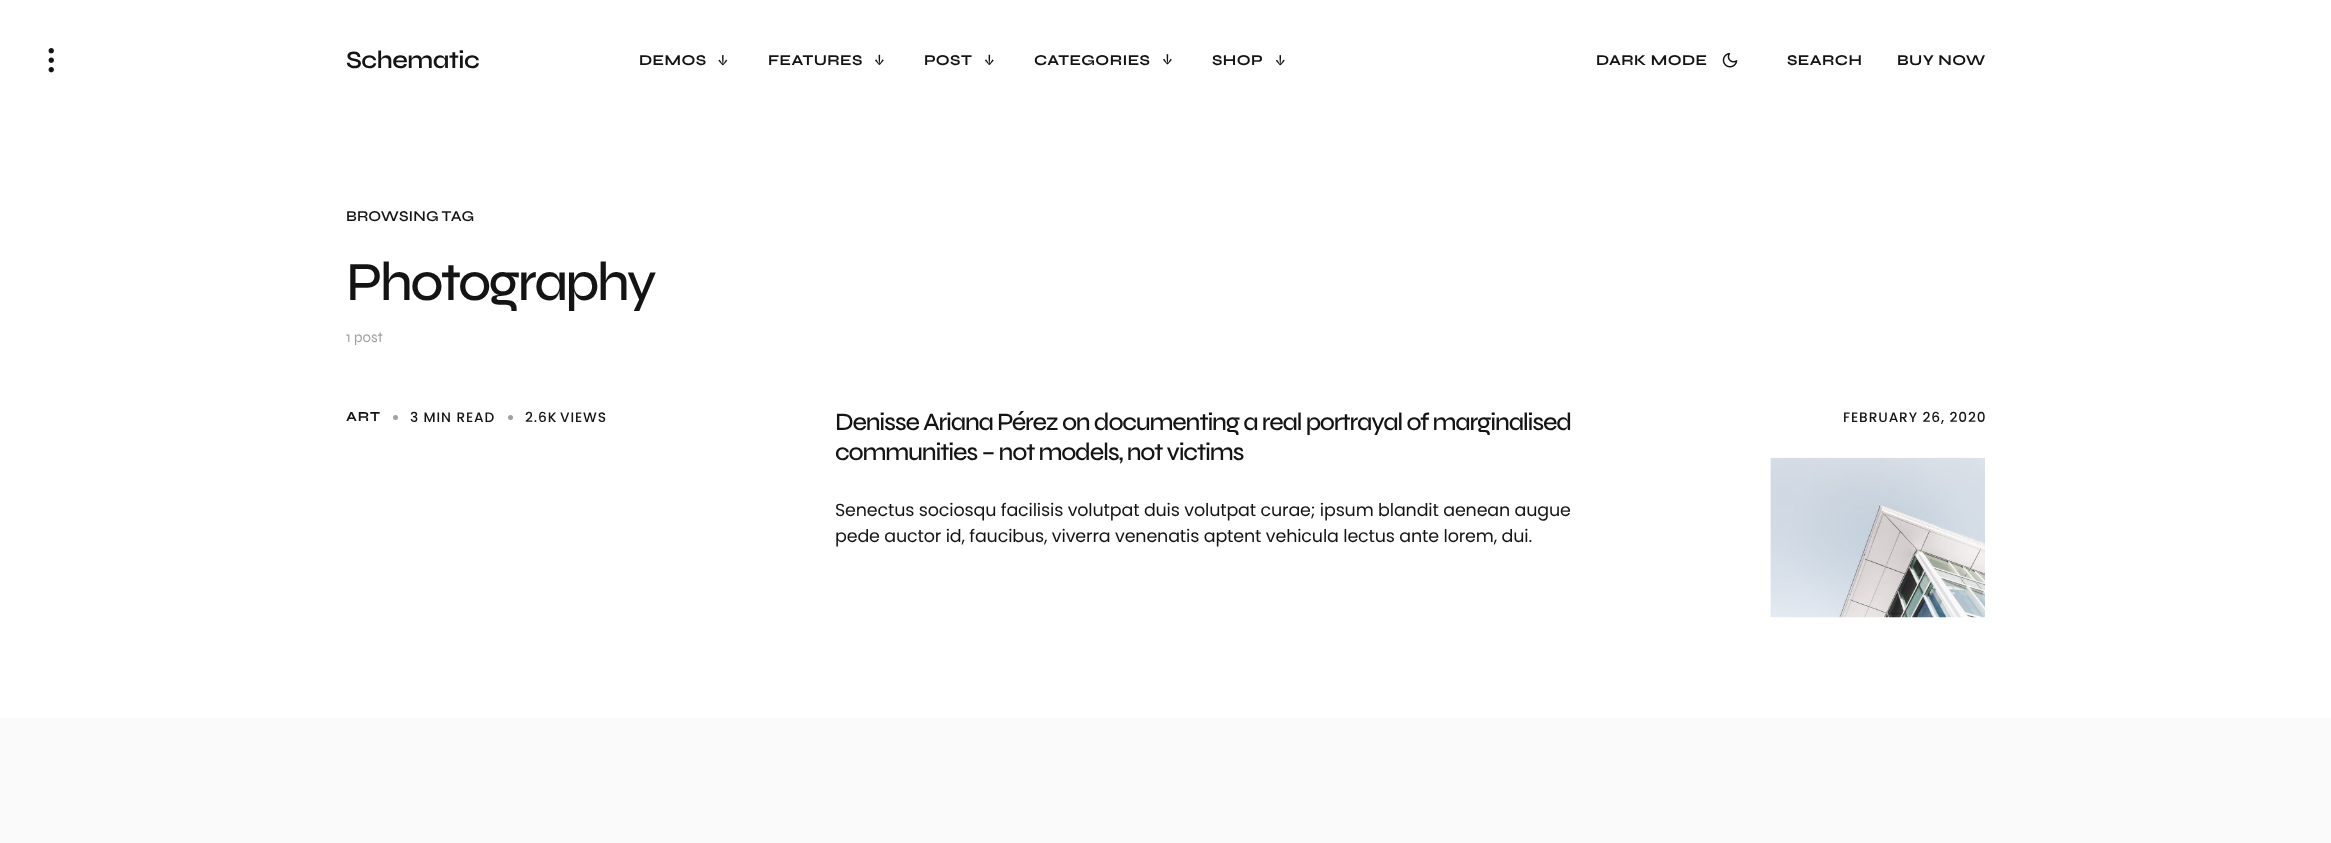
<!DOCTYPE html>
<meta charset="utf-8">
<style>body { margin: 0 } canvas { display: block }</style>
<canvas id="canvas" width="2331" height="843"></canvas>
<img id="img1" src="images/1.png" hidden>
<img id="img2" src="images/2.png" hidden>
<img id="img3" src="images/3.png" hidden>
<img id="img4" src="images/4.png" hidden>
<img id="img5" src="images/5.png" hidden>
<img id="img6" src="images/6.png" hidden>
<img id="img7" src="images/7.png" hidden>
<img id="img8" src="images/8.png" hidden>
<script>
window.onload = function () {
    const canvas = document.getElementById('canvas');
    const context = canvas.getContext('2d');
    context.miterLimit = 4;
    context.fontKerning = 'normal';

    context.fillStyle = 'rgb(255, 255, 255)';
    context.fillRect(0, 0, 2331, 843);
    context.drawImage(document.getElementById('img1'), 48, 48, 6, 25);
    context.drawImage(document.getElementById('img2'), 718, 55, 10, 11);
    context.drawImage(document.getElementById('img3'), 875, 54, 9, 11);
    context.drawImage(document.getElementById('img4'), 984, 54, 10, 11);
    context.drawImage(document.getElementById('img5'), 1163, 54, 9, 11);
    context.drawImage(document.getElementById('img6'), 1275, 55, 10, 11);
    context.drawImage(document.getElementById('img7'), 1722, 52, 16, 16);
    context.fillStyle = 'rgb(161, 161, 161)';
    context.beginPath();
    context.arc(395.5, 417.5, 2.5, 0, 2 * Math.PI);
    context.fill();
    context.beginPath();
    context.arc(510.5, 417.5, 2.5, 0, 2 * Math.PI);
    context.fill();
    context.drawImage(document.getElementById('img8'), 1770, 457, 215, 161);
    context.fillStyle = 'rgb(250, 250, 250)';
    context.fillRect(0, 718, 2331, 125);
    context.letterSpacing = '-0.6px';
    context.font = '600 25px Syne';
    context.fillStyle = 'rgb(20, 20, 20)';
    context.fillText('Schematic', 346, 68);
    context.letterSpacing = '0.4px';
    context.font = 'bold 15px Syne';
    context.fillText('DEMOS', 639, 65);
    context.fillText('FEATURES', 768, 65);
    context.fillText('POST', 924, 65);
    context.fillText('CATEGORIES', 1034, 65);
    context.fillText('SHOP', 1212, 65);
    context.fillText('DARK MODE', 1596, 65);
    context.fillText('SEARCH', 1787, 65);
    context.fillText('BUY NOW', 1897, 65);
    context.letterSpacing = '0.1px';
    context.font = '600 15px Syne';
    context.fillText('BROWSING TAG', 346, 221);
    context.letterSpacing = '-2.75px';
    context.font = '500 55px Syne';
    context.fillText('Photography', 346, 300);
    context.letterSpacing = '0px';
    context.font = '15px Syne';
    context.fillStyle = 'rgb(161, 161, 161)';
    context.fillText('1 post', 346, 342);
    context.letterSpacing = '0.9px';
    context.font = 'bold 13.75px Syne';
    context.fillStyle = 'rgb(20, 20, 20)';
    context.fillText('ART', 346, 421);
    context.font = '500 13.75px Poppins';
    context.fillText('3 MIN READ', 410, 422);
    context.fillText('2.6K', 525, 422);
    context.fillText('VIEWS', 560, 422);
    context.letterSpacing = '-1.25px';
    context.font = '500 25px Syne';
    context.fillText('Denisse Ariana Pérez on documenting a real portrayal of marginalised', 835, 430);
    context.fillText('communities – not models, not victims', 835, 460);
    context.letterSpacing = '-0.15px';
    context.font = '17.5px Poppins';
    context.fillText('Senectus sociosqu facilisis volutpat duis volutpat curae; ipsum blandit aenean augue', 835, 516);
    context.fillText('pede auctor id, faucibus, viverra venenatis aptent vehicula lectus ante lorem, dui.', 835, 542);
    context.letterSpacing = '0.9px';
    context.font = '500 13.75px Poppins';
    context.fillText('FEBRUARY 26, 2020', 1843, 422);
};
</script>
